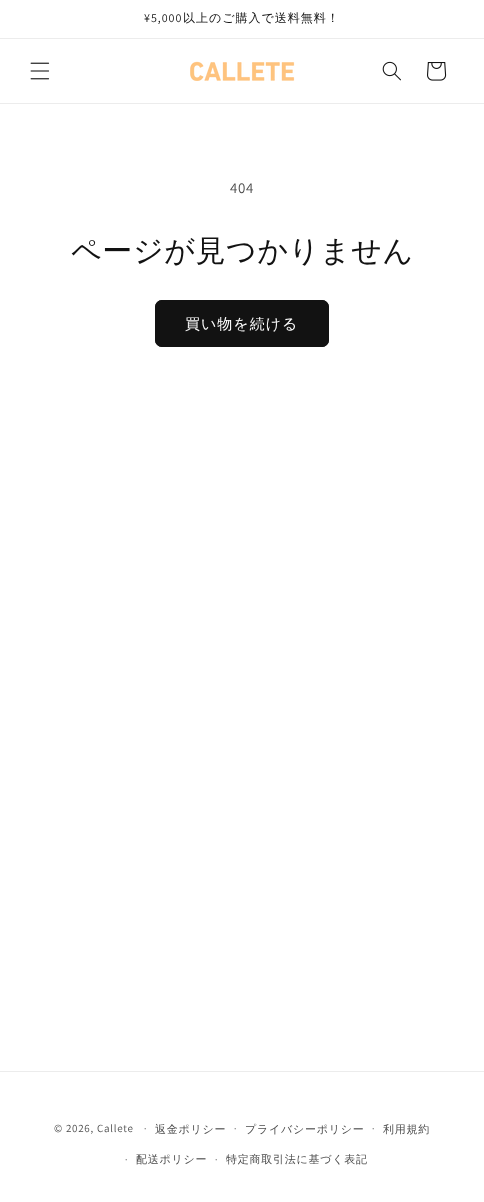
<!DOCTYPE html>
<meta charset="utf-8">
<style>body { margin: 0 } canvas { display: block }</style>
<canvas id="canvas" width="484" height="1202"></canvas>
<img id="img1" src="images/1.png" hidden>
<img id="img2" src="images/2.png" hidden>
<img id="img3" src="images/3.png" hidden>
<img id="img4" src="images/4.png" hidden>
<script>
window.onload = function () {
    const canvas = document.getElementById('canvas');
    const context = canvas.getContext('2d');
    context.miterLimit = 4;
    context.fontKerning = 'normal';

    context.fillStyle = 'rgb(255, 255, 255)';
    context.fillRect(0, 0, 484, 1202);
    context.fillStyle = 'rgb(236, 236, 236)';
    context.fillRect(0, 38, 484, 1);
    context.fillRect(0, 103, 484, 1);
    context.drawImage(document.getElementById('img1'), 30, 62, 20, 18);
    context.drawImage(document.getElementById('img2'), 190, 61, 105, 20);
    context.drawImage(document.getElementById('img3'), 382, 61, 19, 20);
    context.drawImage(document.getElementById('img4'), 427, 62, 20, 19);
    context.fillStyle = 'rgb(18, 18, 18)';
    context.beginPath();
    context.roundRect(155, 300, 174, 47, 7);
    context.fill();
    context.beginPath();
    context.roundRect(155.5, 300.5, 173, 46, 6.5);
    context.strokeStyle = 'rgb(18, 18, 18)';
    context.stroke();
    context.fillStyle = 'rgb(236, 236, 236)';
    context.fillRect(0, 1071, 484, 1);
    context.letterSpacing = '1px';
    context.font = '12px Assistant';
    context.fillStyle = 'rgb(18, 18, 18)';
    context.fillText('¥5,000', 144, 22);
    context.font = '500 12px WenQuanYi Zen Hei';
    context.fillText('以上のご購入で送料無料！', 183, 22);
    context.letterSpacing = '0.6px';
    context.font = '15px Assistant';
    context.fillStyle = 'rgb(77, 77, 77)';
    context.fillText('404', 230, 193);
    context.font = '500 30px WenQuanYi Zen Hei';
    context.fillStyle = 'rgb(18, 18, 18)';
    context.fillText('ページが見つかりません', 71, 261);
    context.letterSpacing = '1px';
    context.font = '500 15px WenQuanYi Zen Hei';
    context.fillStyle = 'rgb(255, 255, 255)';
    context.fillText('買い物を続ける', 185, 329);
    context.letterSpacing = '0.75px';
    context.font = '11px Assistant';
    context.fillStyle = 'rgb(77, 77, 77)';
    context.fillText('© 2026, Callete', 54, 1132);
    context.font = '10px Assistant';
    context.fillText('·', 144, 1132);
    context.font = '500 11px WenQuanYi Zen Hei';
    context.fillText('返金ポリシー', 155, 1133);
    context.font = '10px Assistant';
    context.fillText('·', 234, 1132);
    context.font = '500 11px WenQuanYi Zen Hei';
    context.fillText('プライバシーポリシー', 245, 1133);
    context.font = '10px Assistant';
    context.fillText('·', 372, 1132);
    context.font = '500 11px WenQuanYi Zen Hei';
    context.fillText('利用規約', 383, 1133);
    context.font = '10px Assistant';
    context.fillText('·', 125, 1163);
    context.font = '500 11px WenQuanYi Zen Hei';
    context.fillText('配送ポリシー', 136, 1163);
    context.font = '10px Assistant';
    context.fillText('·', 215, 1163);
    context.font = '500 11px WenQuanYi Zen Hei';
    context.fillText('特定商取引法に基づく表記', 226, 1163);
};
</script>
